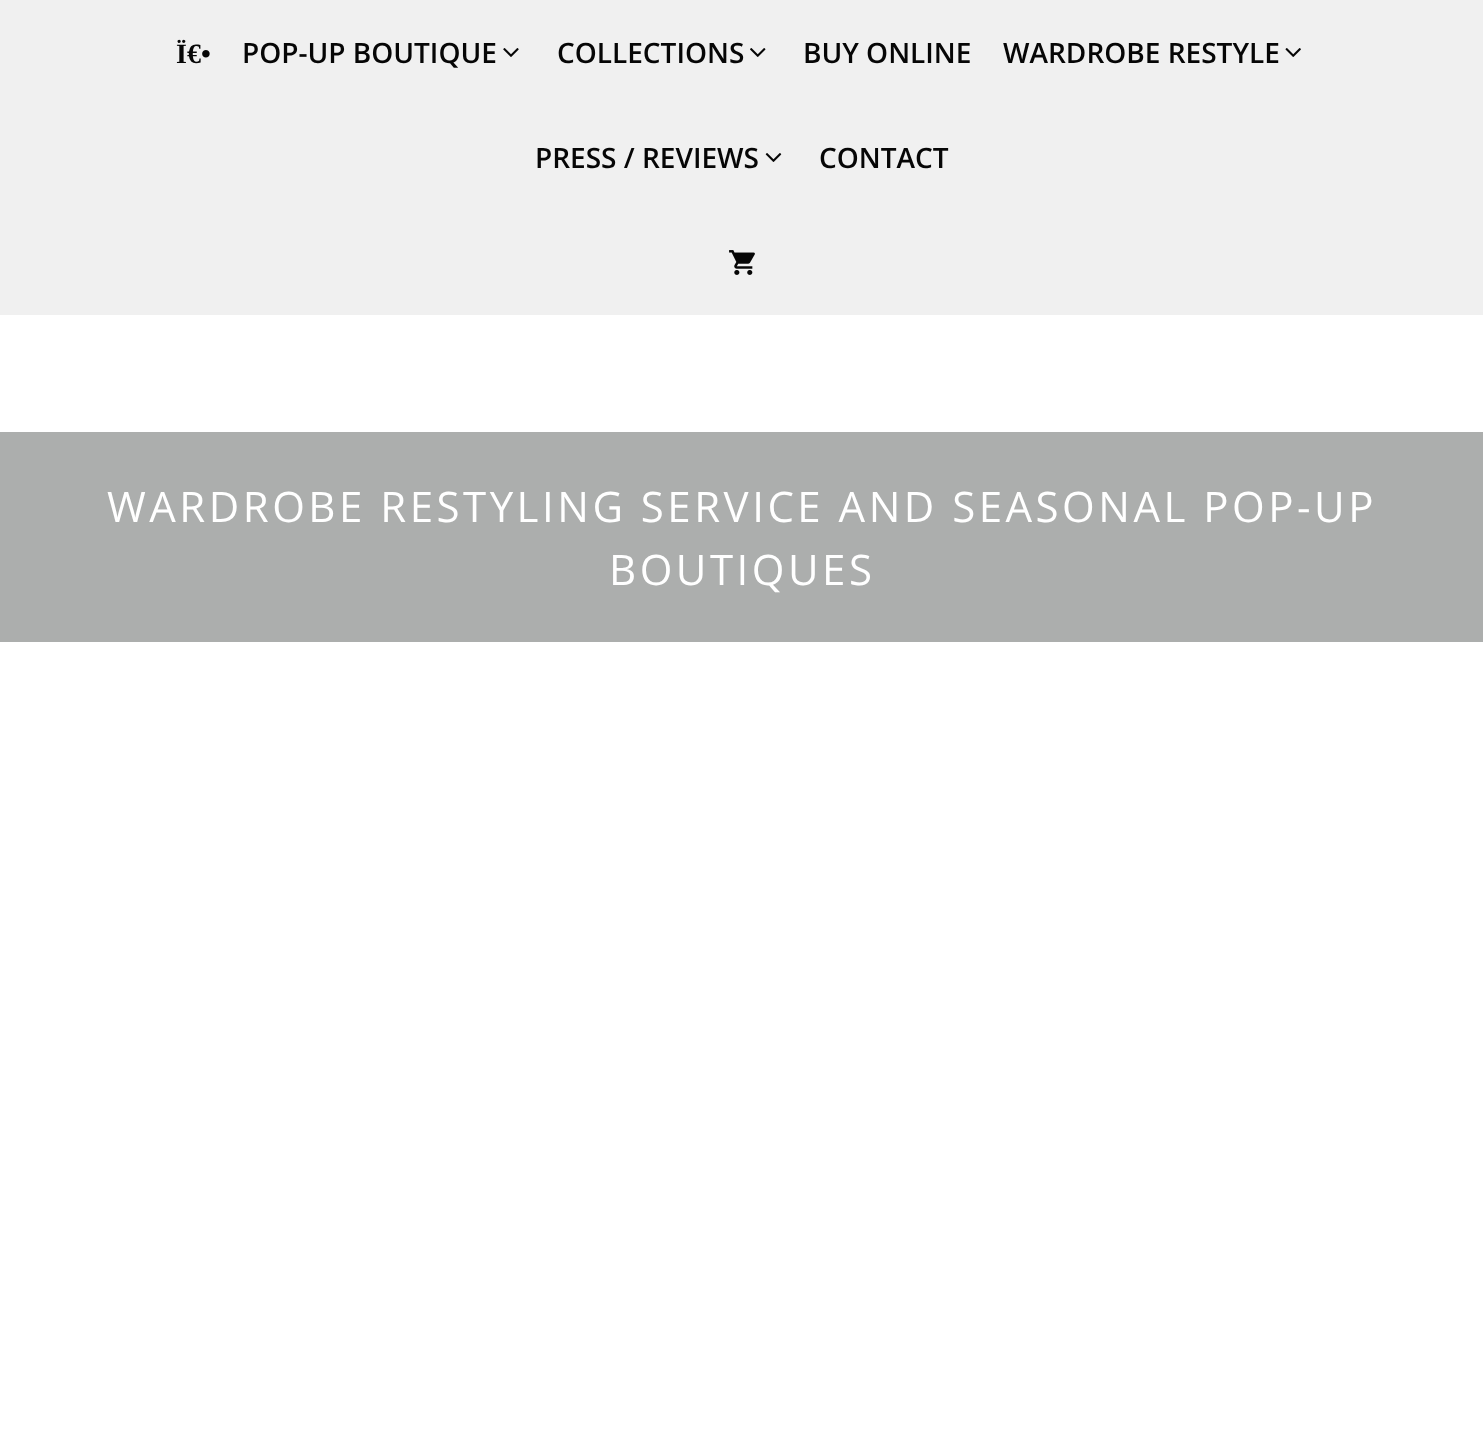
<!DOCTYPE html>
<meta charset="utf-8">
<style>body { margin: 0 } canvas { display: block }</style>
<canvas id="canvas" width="1483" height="1429"></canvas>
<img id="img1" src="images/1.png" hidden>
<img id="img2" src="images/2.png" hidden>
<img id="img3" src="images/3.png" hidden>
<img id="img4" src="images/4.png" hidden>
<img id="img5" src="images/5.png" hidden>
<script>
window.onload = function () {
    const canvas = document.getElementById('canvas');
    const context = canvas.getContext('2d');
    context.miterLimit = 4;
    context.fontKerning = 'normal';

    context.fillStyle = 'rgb(255, 255, 255)';
    context.fillRect(0, 0, 1483, 1429);
    context.fillStyle = 'rgb(240, 240, 240)';
    context.fillRect(0, 0, 1483, 315);
    context.drawImage(document.getElementById('img1'), 503, 48, 16, 9);
    context.drawImage(document.getElementById('img2'), 750, 48, 16, 9);
    context.drawImage(document.getElementById('img3'), 1285, 48, 16, 9);
    context.drawImage(document.getElementById('img4'), 765, 153, 17, 9);
    context.drawImage(document.getElementById('img5'), 729, 250, 26, 25);
    context.fillStyle = 'rgb(172, 174, 173)';
    context.fillRect(0, 432, 1483, 210);
    context.font = 'bold 28px Liberation Serif';
    context.fillStyle = 'rgb(6, 6, 6)';
    context.fillText('Ï€•', 176, 63);
    context.font = '600 28px Open Sans';
    context.fillText('POP-UP BOUTIQUE', 242, 63);
    context.fillText('COLLECTIONS', 557, 63);
    context.fillText('BUY ONLINE', 803, 63);
    context.fillText('WARDROBE RESTYLE', 1003, 63);
    context.fillText('PRESS / REVIEWS', 535, 168);
    context.fillText('CONTACT', 819, 168);
    context.letterSpacing = '3.5px';
    context.font = '42px Open Sans';
    context.fillStyle = 'rgb(255, 255, 255)';
    context.fillText('WARDROBE RESTYLING SERVICE AND SEASONAL POP-UP', 107, 522);
    context.fillText('BOUTIQUES', 609, 585);
};
</script>
